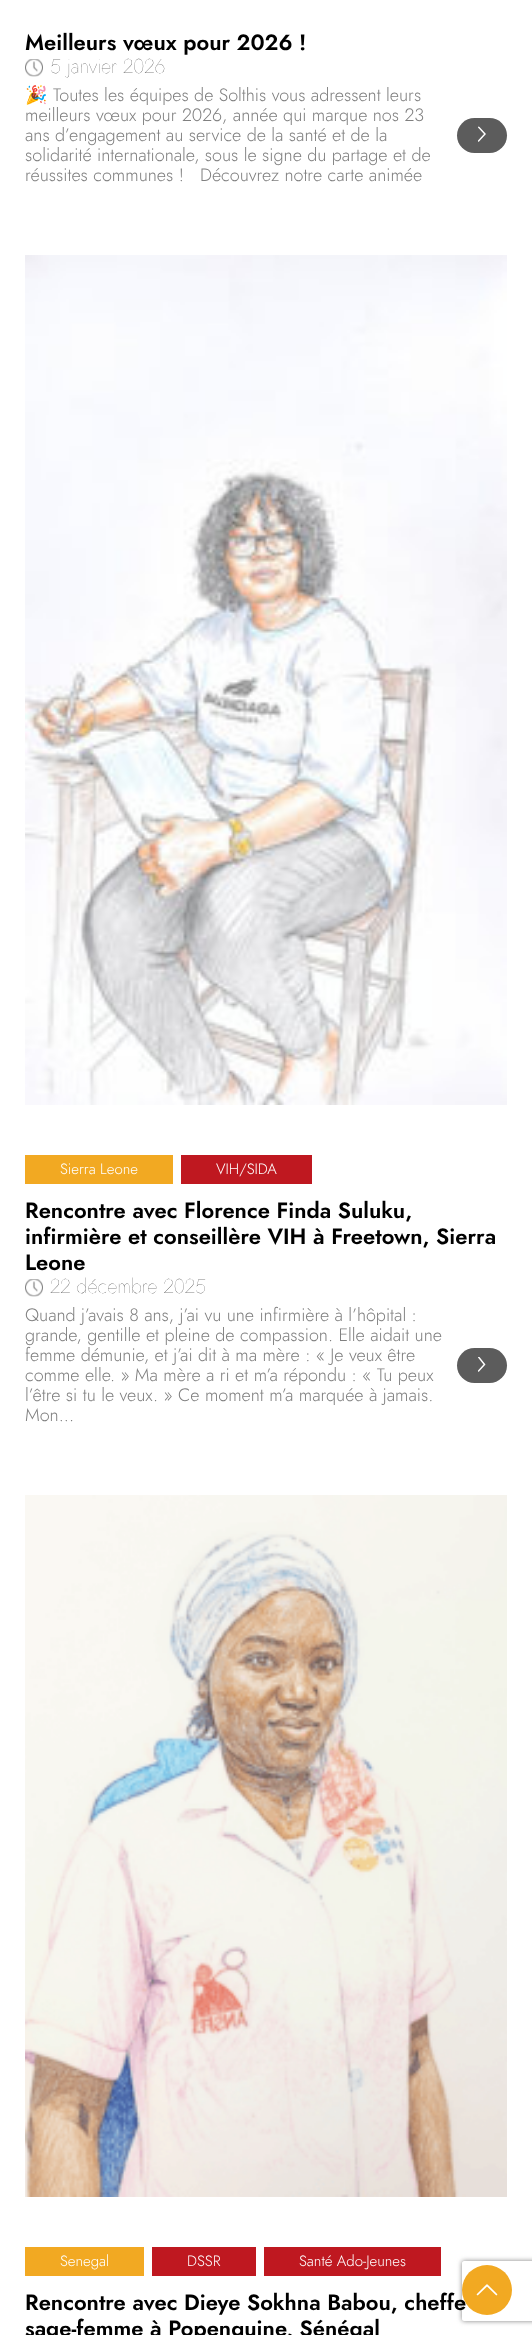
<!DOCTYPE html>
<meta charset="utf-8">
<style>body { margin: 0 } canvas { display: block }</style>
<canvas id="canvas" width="532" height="2335"></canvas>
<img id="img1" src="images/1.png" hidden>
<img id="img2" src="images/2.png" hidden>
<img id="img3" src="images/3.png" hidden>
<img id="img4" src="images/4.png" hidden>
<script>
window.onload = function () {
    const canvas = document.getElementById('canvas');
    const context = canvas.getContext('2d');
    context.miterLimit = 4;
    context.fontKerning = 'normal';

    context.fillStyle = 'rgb(255, 255, 255)';
    context.fillRect(0, 0, 532, 2335);
    context.drawImage(document.getElementById('img1'), 25, 59, 18, 18);
    context.fillStyle = 'rgb(92, 92, 92)';
    context.beginPath();
    context.roundRect(457, 118, 50, 35, 17.5);
    context.fill();
    context.save();
    context.beginPath();
    context.moveTo(478, 142.5);
    context.lineTo(478, 126.5);
    context.lineTo(486, 126.5);
    context.lineTo(486, 142.5);
    context.closePath();
    context.clip();
    context.beginPath();
    context.moveTo(478.5, 141);
    context.lineTo(485, 134);
    context.lineTo(478.5, 127);
    context.strokeStyle = 'rgb(255, 255, 255)';
    context.lineWidth = 1.5;
    context.lineCap = 'round';
    context.stroke();
    context.restore();
    context.drawImage(document.getElementById('img2'), 25, 255, 482, 850);
    context.fillStyle = 'rgb(242, 169, 34)';
    context.fillRect(25, 1155, 148, 29);
    context.fillStyle = 'rgb(191, 24, 32)';
    context.fillRect(181, 1155, 131, 29);
    context.drawImage(document.getElementById('img1'), 25, 1279, 18, 18);
    context.fillStyle = 'rgb(92, 92, 92)';
    context.beginPath();
    context.roundRect(457, 1348, 50, 35, 17.5);
    context.fill();
    context.save();
    context.beginPath();
    context.moveTo(478, 1373);
    context.lineTo(478, 1357);
    context.lineTo(486, 1357);
    context.lineTo(486, 1373);
    context.closePath();
    context.clip();
    context.beginPath();
    context.moveTo(478.5, 1371);
    context.lineTo(484.5, 1364.5);
    context.lineTo(478.5, 1357);
    context.strokeStyle = 'rgb(255, 255, 255)';
    context.lineWidth = 1.5;
    context.lineCap = 'round';
    context.stroke();
    context.restore();
    context.drawImage(document.getElementById('img3'), 25, 1495, 482, 702);
    context.fillStyle = 'rgb(242, 169, 34)';
    context.fillRect(25, 2247, 119, 29);
    context.fillStyle = 'rgb(191, 24, 32)';
    context.fillRect(152, 2247, 104, 29);
    context.fillRect(264, 2247, 177, 29);
    context.save();
    context.beginPath();
    context.moveTo(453, 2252);
    context.lineTo(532, 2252);
    context.lineTo(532, 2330);
    context.lineTo(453, 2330);
    context.closePath();
    context.moveTo(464, 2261);
    context.lineTo(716, 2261);
    context.bezierCurveTo(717, 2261, 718, 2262, 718, 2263);
    context.lineTo(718, 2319);
    context.bezierCurveTo(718, 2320, 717, 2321, 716, 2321);
    context.lineTo(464, 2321);
    context.bezierCurveTo(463, 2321, 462, 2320, 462, 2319);
    context.lineTo(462, 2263);
    context.bezierCurveTo(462, 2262, 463, 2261, 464, 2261);
    context.closePath();
    context.clip('evenodd');
    context.fillStyle = 'rgb(128, 128, 128)';
    context.filter = 'blur(2.5px)';
    context.beginPath();
    context.roundRect(462, 2261, 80, 60, 2);
    context.fill();
    context.filter = 'none';
    context.restore();
    context.font = '600 22px Jost';
    context.fillStyle = 'rgb(0, 0, 0)';
    context.fillText('Meilleurs vœux pour 2026 !', 25, 50);
    context.font = '100 20px Jost';
    context.fillText('5 janvier 2026', 50, 73);
    context.font = '18px Noto Color Emoji';
    context.fillStyle = 'rgb(128, 128, 128)';
    context.fillText('🎉', 25, 101);
    context.font = '300 18px Jost';
    context.fillText('Toutes les équipes de Solthis vous adressent leurs', 53, 101);
    context.fillText('meilleurs vœux pour 2026, année qui marque nos 23', 25, 121);
    context.fillText('ans d’engagement au service de la santé et de la', 25, 141);
    context.fillText('solidarité internationale, sous le signe du partage et de', 25, 161);
    context.fillText('réussites communes !   Découvrez notre carte animée', 25, 181);
    context.font = '300 15px Jost';
    context.fillStyle = 'rgb(255, 255, 255)';
    context.fillText('Sierra Leone', 60, 1174);
    context.fillText('VIH/SIDA', 216, 1174);
    context.font = '600 22px Jost';
    context.fillStyle = 'rgb(0, 0, 0)';
    context.fillText('Rencontre avec Florence Finda Suluku,', 25, 1218);
    context.fillText('infirmière et conseillère VIH à Freetown, Sierra', 25, 1244);
    context.fillText('Leone', 25, 1270);
    context.font = '100 20px Jost';
    context.fillText('22 décembre 2025', 50, 1293);
    context.font = '300 18px Jost';
    context.fillStyle = 'rgb(128, 128, 128)';
    context.fillText('Quand j’avais 8 ans, j’ai vu une infirmière à l’hôpital :', 25, 1321);
    context.fillText('grande, gentille et pleine de compassion. Elle aidait une', 25, 1341);
    context.fillText('femme démunie, et j’ai dit à ma mère : « Je veux être', 25, 1361);
    context.fillText('comme elle. » Ma mère a ri et m’a répondu : « Tu peux', 25, 1381);
    context.fillText('l’être si tu le veux. » Ce moment m’a marquée à jamais.', 25, 1401);
    context.fillText('Mon...', 25, 1421);
    context.font = '300 15px Jost';
    context.fillStyle = 'rgb(255, 255, 255)';
    context.fillText('Senegal', 60, 2266);
    context.fillText('DSSR', 187, 2266);
    context.fillText('Santé Ado-Jeunes', 299, 2266);
    context.font = '600 22px Jost';
    context.fillStyle = 'rgb(0, 0, 0)';
    context.fillText('Rencontre avec Dieye Sokhna Babou, cheffe', 25, 2310);
    context.fillText('sage-femme à Popenguine, Sénégal', 25, 2336);
    context.fillStyle = 'rgb(242, 169, 34)';
    context.beginPath();
    context.arc(487, 2290, 25, 0, 2 * Math.PI);
    context.fill();
    context.drawImage(document.getElementById('img4'), 476, 2284, 22, 12);
};
</script>
